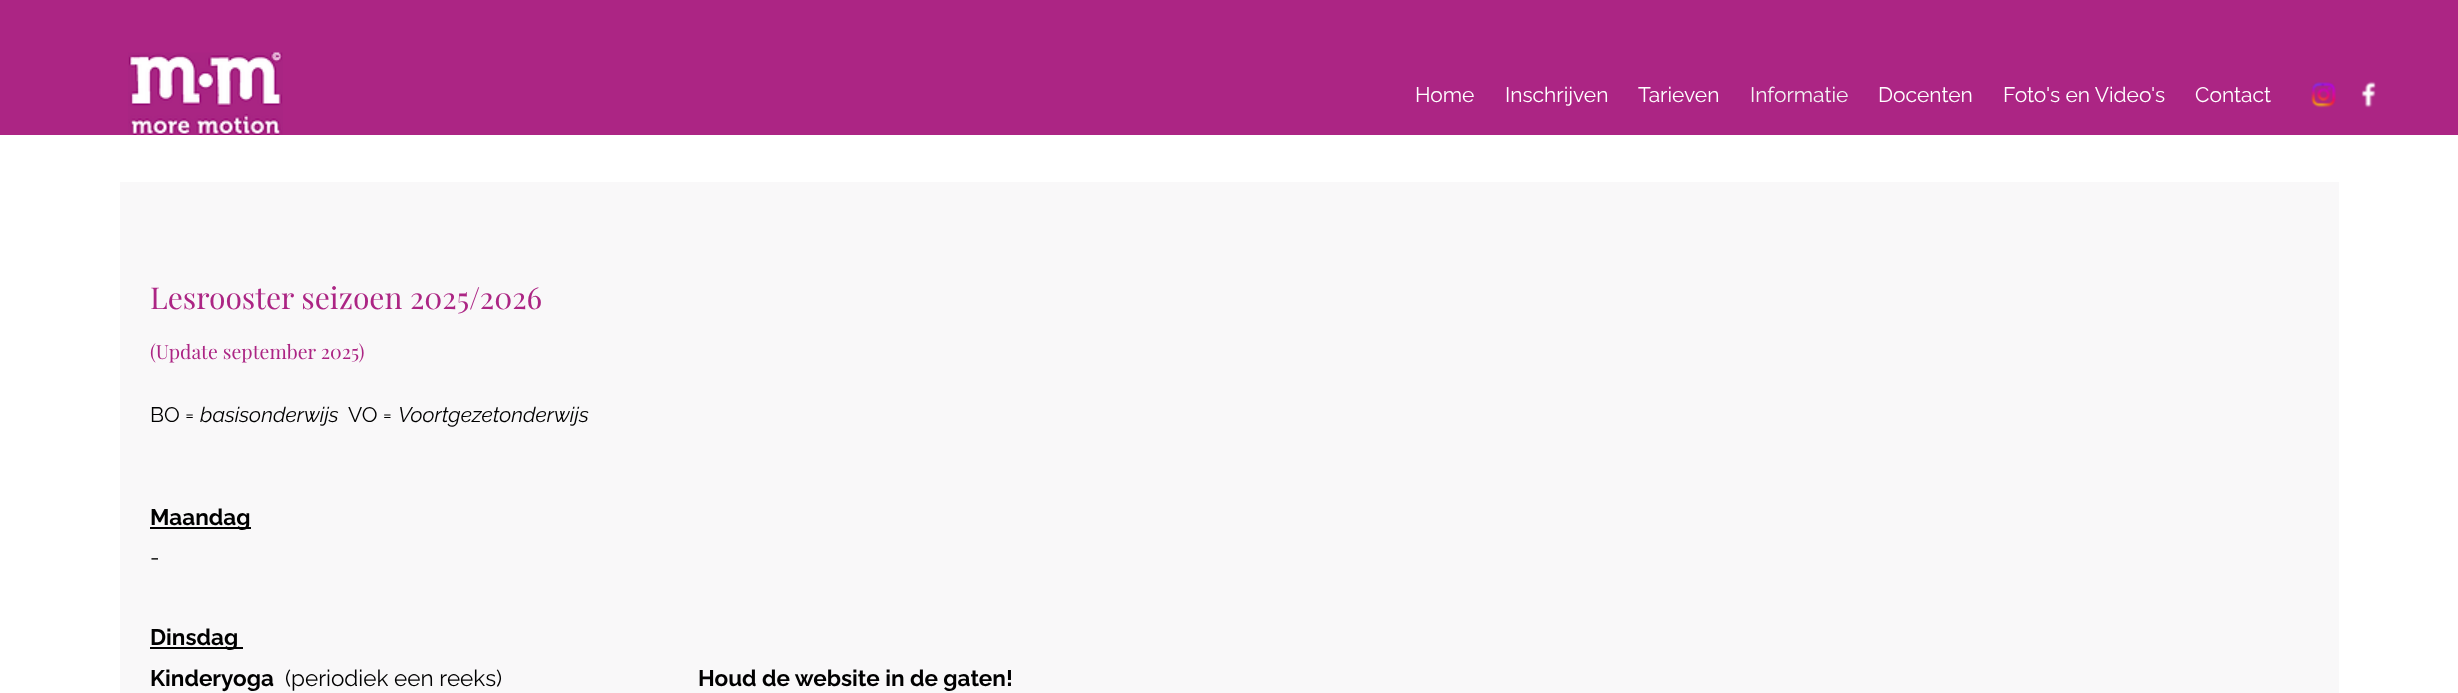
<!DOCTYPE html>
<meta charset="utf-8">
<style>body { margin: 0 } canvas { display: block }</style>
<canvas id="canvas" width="2458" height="693"></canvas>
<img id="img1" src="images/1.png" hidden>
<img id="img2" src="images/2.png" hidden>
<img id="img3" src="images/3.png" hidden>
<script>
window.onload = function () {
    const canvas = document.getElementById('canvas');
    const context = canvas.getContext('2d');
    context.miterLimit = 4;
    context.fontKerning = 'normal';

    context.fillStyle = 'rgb(255, 255, 255)';
    context.fillRect(0, 0, 2458, 693);
    context.fillStyle = 'rgb(172, 37, 132)';
    context.fillRect(0, 0, 2458, 135);
    context.drawImage(document.getElementById('img1'), 128, 52, 155, 83);
    context.drawImage(document.getElementById('img2'), 2311, 82, 25, 26);
    context.drawImage(document.getElementById('img3'), 2361, 81, 15, 27);
    context.fillStyle = 'rgb(249, 248, 249)';
    context.fillRect(120, 182, 2219, 511);
    context.fillStyle = 'rgb(0, 0, 0)';
    context.fillRect(150, 527, 101, 2);
    context.fillRect(150, 647, 93, 2);
    context.font = '21px Raleway';
    context.fillStyle = 'rgb(255, 255, 255)';
    context.fillText('Home', 1415, 102);
    context.fillText('Inschrijven', 1505, 102);
    context.fillText('Tarieven', 1638, 102);
    context.fillStyle = 'rgb(244, 242, 244)';
    context.fillText('Informatie', 1750, 102);
    context.fillStyle = 'rgb(255, 255, 255)';
    context.fillText('Docenten', 1878, 102);
    context.fillText('Foto\'s en Video\'s', 2003, 102);
    context.fillText('Contact', 2195, 102);
    context.font = '30px Playfair Display';
    context.fillStyle = 'rgb(172, 37, 132)';
    context.fillText('Lesrooster seizoen 2025/2026', 150, 309);
    context.font = '19.5px Playfair Display';
    context.fillText('(Update september 2025)', 150, 359);
    context.font = '21px Raleway';
    context.fillStyle = 'rgb(0, 0, 0)';
    context.fillText('BO =', 150, 422);
    context.font = 'italic 21px Raleway';
    context.fillText('basisonderwijs', 200, 422);
    context.font = '21px Raleway';
    context.fillText('VO =', 348, 422);
    context.font = 'italic 21px Raleway';
    context.fillText('Voortgezetonderwijs', 398, 422);
    context.font = 'bold 22.5px Raleway';
    context.fillText('Maandag', 150, 525);
    context.font = '22.5px Raleway';
    context.fillText('-', 150, 565);
    context.font = 'bold 22.5px Raleway';
    context.fillText('Dinsdag', 150, 645);
    context.fillText('Kinderyoga', 150, 686);
    context.font = '22.5px Raleway';
    context.fillText('(periodiek een reeks)', 285, 686);
    context.font = 'bold 22.5px Raleway';
    context.fillText('Houd de website in de gaten!', 698, 686);
};
</script>
